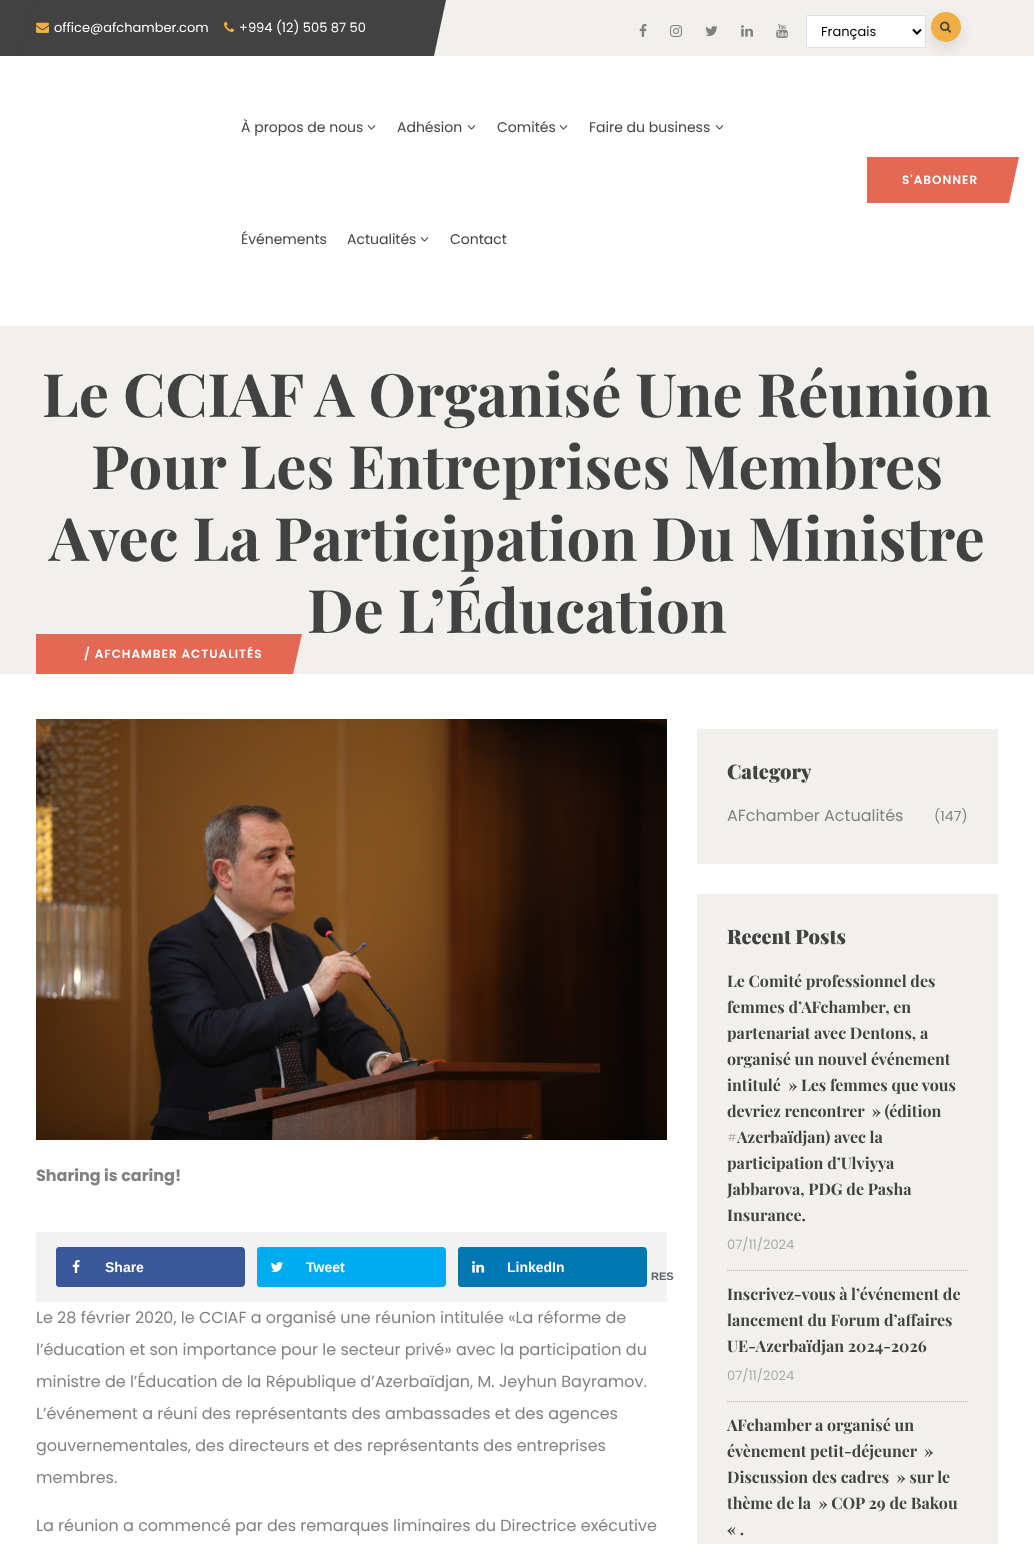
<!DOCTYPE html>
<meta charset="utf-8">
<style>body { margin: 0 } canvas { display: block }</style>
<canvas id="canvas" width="1034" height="1544"></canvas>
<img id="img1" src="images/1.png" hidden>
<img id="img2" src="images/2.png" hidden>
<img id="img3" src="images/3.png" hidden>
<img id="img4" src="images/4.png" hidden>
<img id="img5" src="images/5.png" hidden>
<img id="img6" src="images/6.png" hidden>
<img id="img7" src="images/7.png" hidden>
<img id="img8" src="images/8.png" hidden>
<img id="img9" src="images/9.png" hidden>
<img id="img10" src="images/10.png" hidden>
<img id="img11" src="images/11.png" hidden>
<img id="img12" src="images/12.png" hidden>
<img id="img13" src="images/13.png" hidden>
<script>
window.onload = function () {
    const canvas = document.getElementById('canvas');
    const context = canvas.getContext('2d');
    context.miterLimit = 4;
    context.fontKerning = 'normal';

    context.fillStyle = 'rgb(255, 255, 255)';
    context.fillRect(0, 0, 1034, 1544);
    context.fillStyle = 'rgb(242, 240, 236)';
    context.fillRect(434, 0, 600, 56);
    context.fillStyle = 'rgb(66, 66, 66)';
    context.fillRect(0, 0, 33, 56);
    context.beginPath();
    context.moveTo(33, 0);
    context.lineTo(446, 0);
    context.lineTo(434, 56);
    context.lineTo(21, 56);
    context.closePath();
    context.fill();
    context.drawImage(document.getElementById('img1'), 36, 22, 13, 11);
    context.drawImage(document.getElementById('img2'), 224, 21, 11, 11);
    context.drawImage(document.getElementById('img3'), 639, 24, 8, 13);
    context.drawImage(document.getElementById('img4'), 670, 25, 12, 12);
    context.drawImage(document.getElementById('img5'), 705, 26, 13, 10);
    context.drawImage(document.getElementById('img6'), 741, 25, 12, 12);
    context.drawImage(document.getElementById('img7'), 776, 24, 12, 14);
    context.fillStyle = 'rgb(255, 255, 255)';
    context.beginPath();
    context.rect(806.5, 15.5, 119, 32);
    context.fill();
    context.strokeStyle = 'rgb(222, 226, 230)';
    context.stroke();
    context.beginPath();
    context.moveTo(913, 29.5);
    context.lineTo(917, 33.5);
    context.lineTo(921, 29.5);
    context.strokeStyle = 'rgb(0, 0, 0)';
    context.lineWidth = 2;
    context.stroke();
    context.fillStyle = 'rgba(0, 0, 0, 0.1)';
    context.filter = 'blur(7px)';
    context.beginPath();
    context.roundRect(931, 18, 30, 30, 15);
    context.fill();
    context.filter = 'none';
    context.fillStyle = 'rgb(241, 174, 68)';
    context.beginPath();
    context.arc(946, 27, 15, 0, 2 * Math.PI);
    context.fill();
    context.drawImage(document.getElementById('img8'), 940, 21, 12, 12);
    context.drawImage(document.getElementById('img9'), 367, 125, 9, 5);
    context.drawImage(document.getElementById('img9'), 467, 125, 9, 5);
    context.drawImage(document.getElementById('img9'), 559, 125, 9, 5);
    context.drawImage(document.getElementById('img9'), 715, 125, 9, 5);
    context.drawImage(document.getElementById('img9'), 420, 237, 9, 5);
    context.fillStyle = 'rgb(227, 105, 85)';
    context.fillRect(867, 157, 11, 46);
    context.beginPath();
    context.moveTo(878, 157);
    context.lineTo(1019, 157);
    context.lineTo(1009, 203);
    context.lineTo(868, 203);
    context.closePath();
    context.fill();
    context.fillStyle = 'rgb(242, 240, 236)';
    context.fillRect(0, 326, 1034, 348);
    context.fillStyle = 'rgb(227, 105, 85)';
    context.fillRect(36, 634, 10, 40);
    context.beginPath();
    context.moveTo(46, 634);
    context.lineTo(302, 634);
    context.lineTo(293, 674);
    context.lineTo(37, 674);
    context.closePath();
    context.fill();
    context.drawImage(document.getElementById('img10'), 36, 719, 631, 421);
    context.fillStyle = 'rgb(242, 242, 242)';
    context.fillRect(36, 1232, 631, 70);
    context.fillStyle = 'rgb(58, 87, 154)';
    context.beginPath();
    context.roundRect(57, 1248, 187, 38, 3);
    context.fill();
    context.strokeStyle = 'rgb(58, 87, 154)';
    context.stroke();
    context.beginPath();
    context.roundRect(57, 1248, 38, 38, [3, 0, 0, 3]);
    context.fill();
    context.stroke();
    context.drawImage(document.getElementById('img11'), 72, 1260, 8, 13);
    context.fillStyle = 'rgb(0, 171, 240)';
    context.beginPath();
    context.roundRect(258, 1248, 187, 38, 3);
    context.fill();
    context.strokeStyle = 'rgb(0, 171, 240)';
    context.stroke();
    context.beginPath();
    context.roundRect(258, 1248, 38, 38, [3, 0, 0, 3]);
    context.fill();
    context.stroke();
    context.drawImage(document.getElementById('img12'), 271, 1262, 12, 10);
    context.fillStyle = 'rgb(0, 119, 181)';
    context.beginPath();
    context.roundRect(459, 1248, 187, 38, 3);
    context.fill();
    context.strokeStyle = 'rgb(0, 119, 181)';
    context.stroke();
    context.beginPath();
    context.roundRect(459, 1248, 38, 38, [3, 0, 0, 3]);
    context.fill();
    context.stroke();
    context.drawImage(document.getElementById('img13'), 472, 1261, 13, 12);
    context.fillStyle = 'rgb(242, 240, 236)';
    context.fillRect(697, 729, 301, 135);
    context.fillRect(697, 894, 301, 650);
    context.beginPath();
    context.moveTo(727, 1270.5);
    context.lineTo(968, 1270.5);
    context.strokeStyle = 'rgb(194, 192, 189)';
    context.lineWidth = 1;
    context.setLineDash([1, 1]);
    context.stroke();
    context.beginPath();
    context.moveTo(727, 1401.5);
    context.lineTo(968, 1401.5);
    context.stroke();
    context.font = '13px Poppins';
    context.fillStyle = 'rgb(255, 255, 255)';
    context.fillText('office@afchamber.com', 54, 32);
    context.fillText('+994 (12) 505 87 50', 239, 32);
    context.fillStyle = 'rgb(0, 0, 0)';
    context.fillText('Français', 821, 36);
    context.font = '14px Poppins';
    context.fillStyle = 'rgb(66, 66, 66)';
    context.fillText('À propos de nous', 241, 132);
    context.fillText('Adhésion', 397, 132);
    context.fillText('Comités', 497, 132);
    context.fillText('Faire du business', 589, 132);
    context.fillText('Événements', 241, 244);
    context.fillText('Actualités', 347, 244);
    context.fillText('Contact', 450, 244);
    context.letterSpacing = '1px';
    context.font = '600 12px Poppins';
    context.fillStyle = 'rgb(255, 255, 255)';
    context.fillText('S\'ABONNER', 902, 184);
    context.letterSpacing = '0px';
    context.font = 'bold 60px Playfair Display';
    context.fillStyle = 'rgb(66, 66, 66)';
    context.fillText('Le CCIAF A Organisé Une Réunion', 42, 417);
    context.fillText('Pour Les Entreprises Membres', 91, 489);
    context.fillText('Avec La Participation Du Ministre', 49, 561);
    context.fillText('De L’Éducation', 307, 633);
    context.letterSpacing = '1px';
    context.font = '600 12px Poppins';
    context.fillStyle = 'rgb(255, 255, 255)';
    context.fillText('/ AFCHAMBER ACTUALITÉS', 84, 658);
    context.letterSpacing = '0px';
    context.font = 'bold 16px Poppins';
    context.fillStyle = 'rgb(129, 129, 129)';
    context.fillText('Sharing is caring!', 36, 1181);
    context.font = 'bold 14px Liberation Sans';
    context.fillStyle = 'rgb(255, 255, 255)';
    context.fillText('Share', 105, 1272);
    context.fillText('Tweet', 306, 1272);
    context.fillText('LinkedIn', 507, 1272);
    context.font = 'bold 11px Liberation Sans';
    context.fillStyle = 'rgb(93, 99, 104)';
    context.fillText('RES', 651, 1280);
    context.font = '16px Poppins';
    context.fillStyle = 'rgb(129, 129, 129)';
    context.fillText('Le 28 février 2020, le CCIAF a organisé une réunion intitulée «La réforme de', 36, 1323);
    context.fillText('l’éducation et son importance pour le secteur privé» avec la participation du', 36, 1355);
    context.fillText('ministre de l’Éducation de la République d’Azerbaïdjan, M. Jeyhun Bayramov.', 36, 1387);
    context.fillText('L’événement a réuni des représentants des ambassades et des agences', 36, 1419);
    context.fillText('gouvernementales, des directeurs et des représentants des entreprises', 36, 1451);
    context.fillText('membres.', 36, 1483);
    context.fillText('La réunion a commencé par des remarques liminaires du Directrice exécutive', 36, 1531);
    context.font = '900 20px Playfair Display';
    context.fillStyle = 'rgb(66, 66, 66)';
    context.fillText('Category', 727, 779);
    context.font = '16px Poppins';
    context.fillStyle = 'rgb(129, 129, 129)';
    context.fillText('AFchamber Actualités', 727, 821);
    context.font = '14px Poppins';
    context.fillText('(147)', 934, 821);
    context.font = '900 20px Playfair Display';
    context.fillStyle = 'rgb(66, 66, 66)';
    context.fillText('Recent Posts', 727, 944);
    context.font = 'bold 16px Playfair Display';
    context.fillText('Le Comité professionnel des', 727, 987);
    context.fillText('femmes d’AFchamber, en', 727, 1013);
    context.fillText('partenariat avec Dentons, a', 727, 1039);
    context.fillText('organisé un nouvel événement', 727, 1065);
    context.fillText('intitulé  » Les femmes que vous', 727, 1091);
    context.fillText('devriez rencontrer  » (édition', 727, 1117);
    context.fillText('#Azerbaïdjan) avec la', 727, 1143);
    context.fillText('participation d’Ulviyya', 727, 1169);
    context.fillText('Jabbarova, PDG de Pasha', 727, 1195);
    context.fillText('Insurance.', 727, 1221);
    context.font = '13px Poppins';
    context.fillStyle = 'rgb(170, 170, 170)';
    context.fillText('07/11/2024', 727, 1249);
    context.font = 'bold 16px Playfair Display';
    context.fillStyle = 'rgb(66, 66, 66)';
    context.fillText('Inscrivez-vous à l’événement de', 727, 1300);
    context.fillText('lancement du Forum d’affaires', 727, 1326);
    context.fillText('UE-Azerbaïdjan 2024-2026', 727, 1352);
    context.font = '13px Poppins';
    context.fillStyle = 'rgb(170, 170, 170)';
    context.fillText('07/11/2024', 727, 1380);
    context.font = 'bold 16px Playfair Display';
    context.fillStyle = 'rgb(66, 66, 66)';
    context.fillText('AFchamber a organisé un', 727, 1431);
    context.fillText('évènement petit-déjeuner  »', 727, 1457);
    context.fillText('Discussion des cadres  » sur le', 727, 1483);
    context.fillText('thème de la  » COP 29 de Bakou', 727, 1509);
    context.fillText('« .', 727, 1535);
};
</script>
